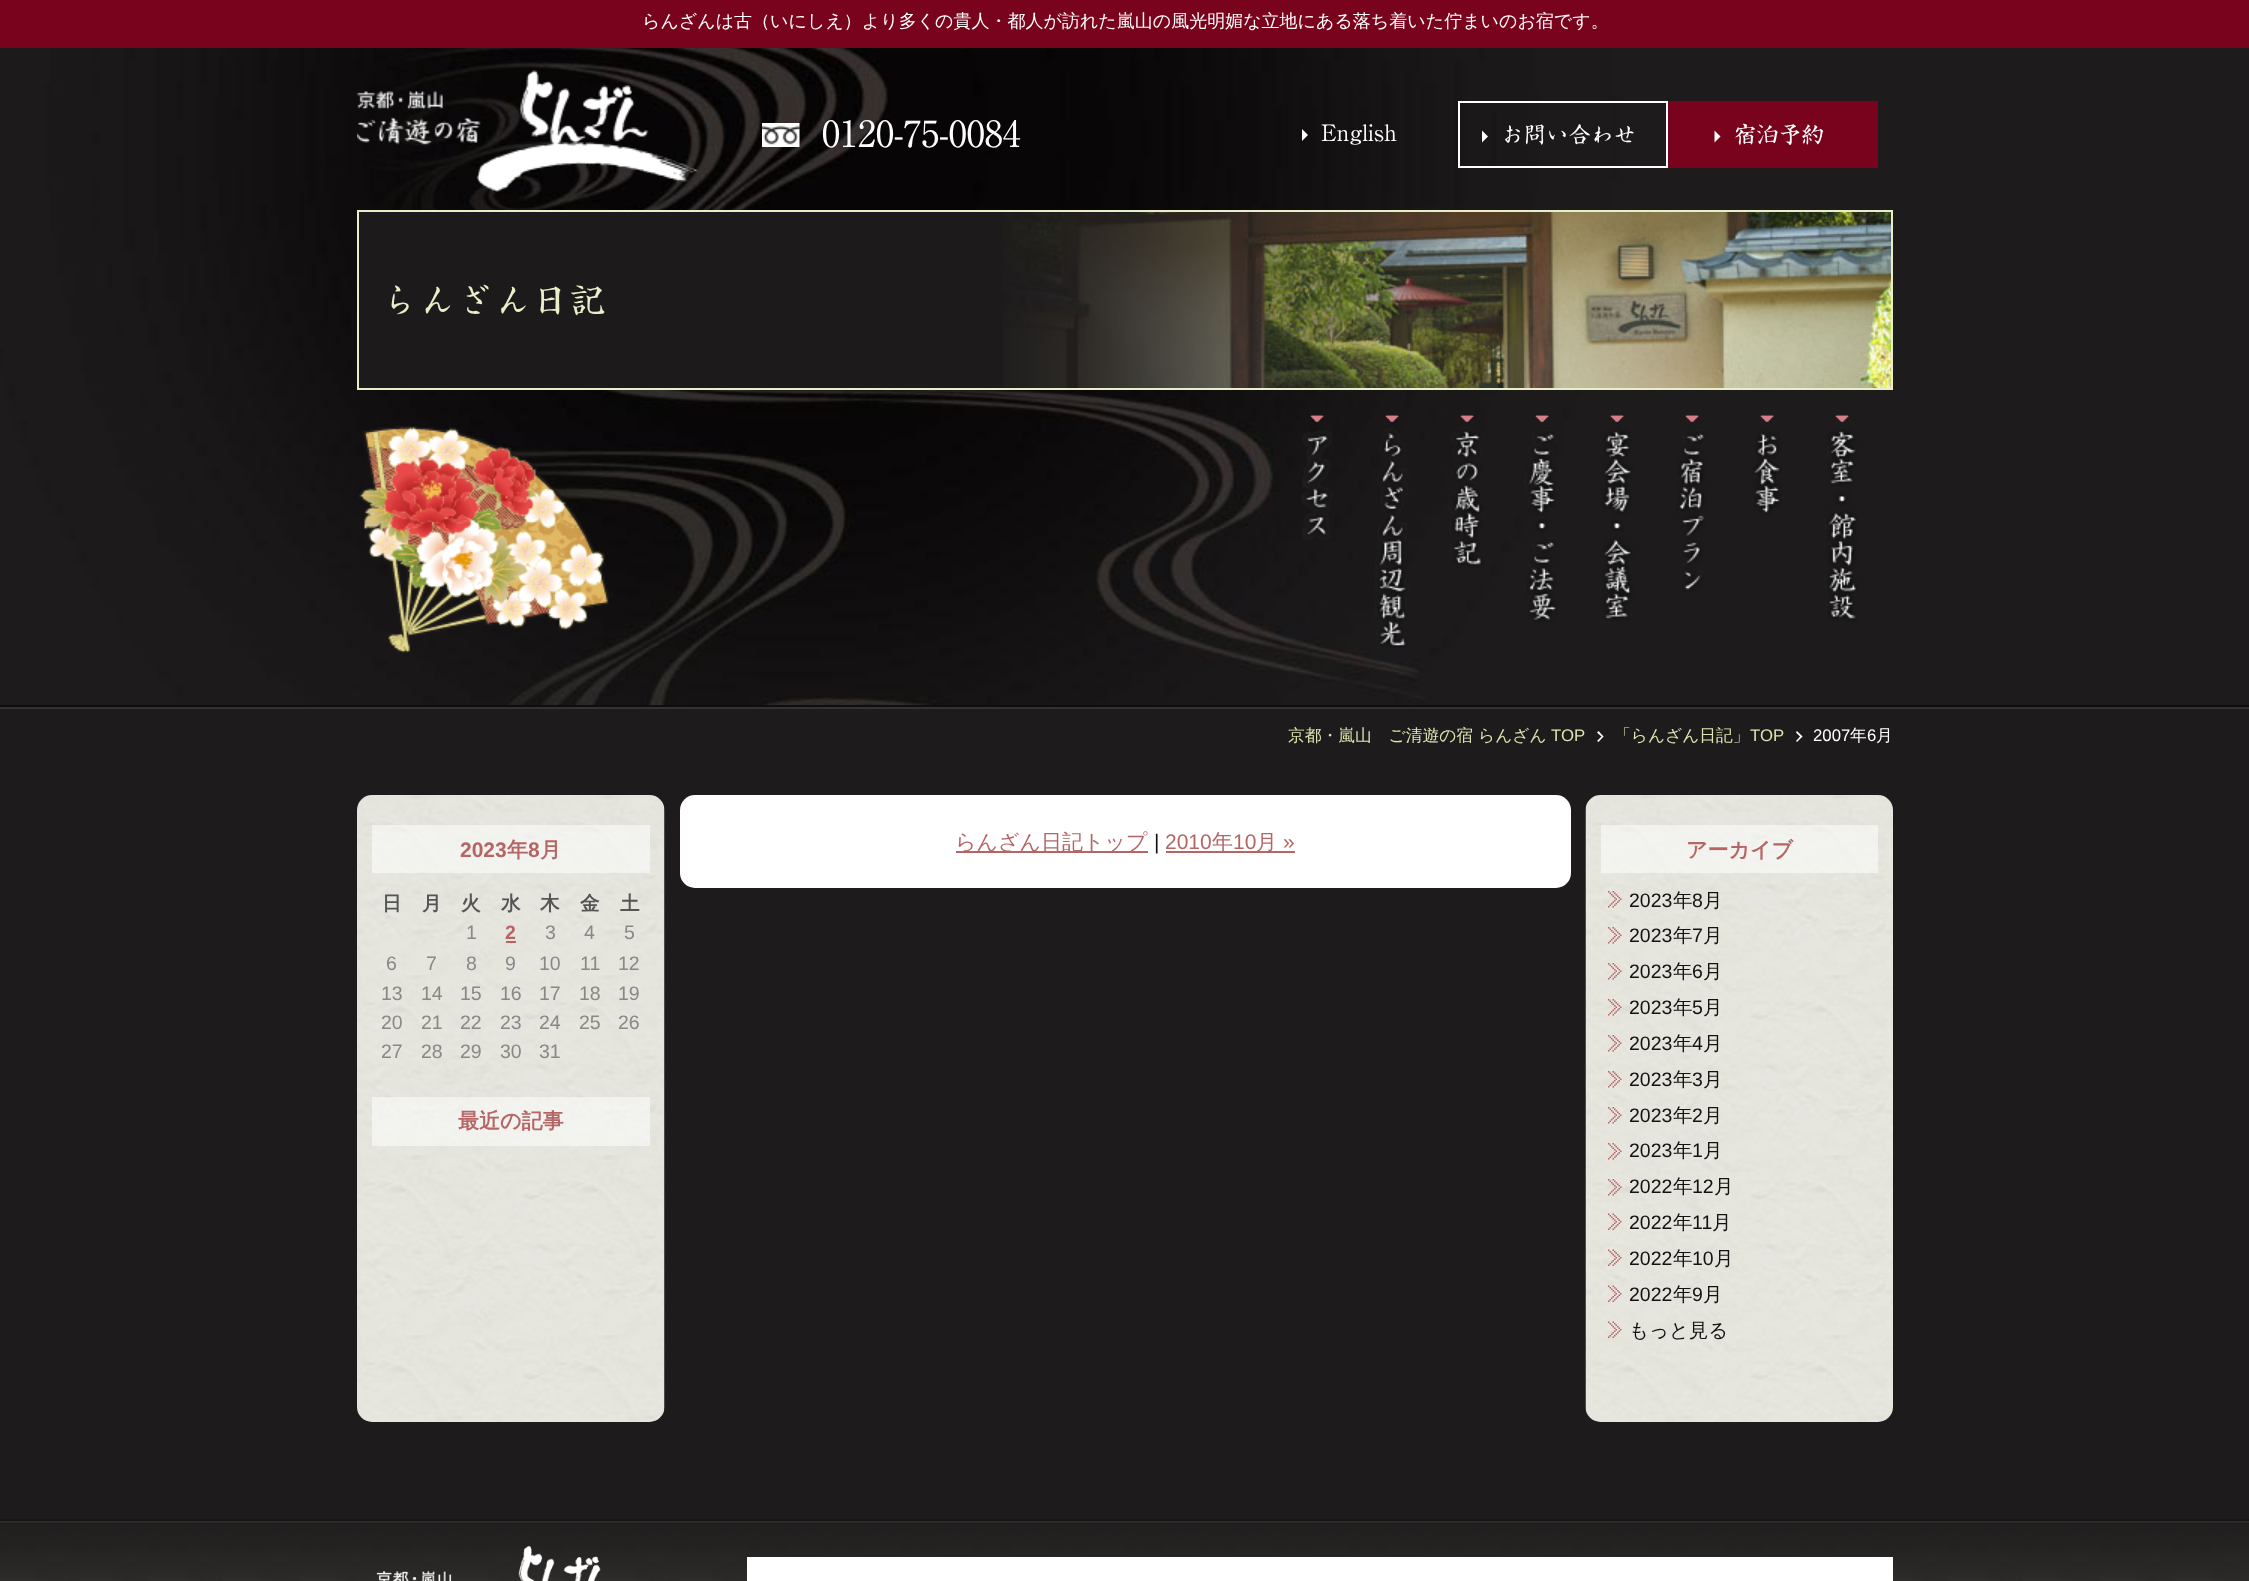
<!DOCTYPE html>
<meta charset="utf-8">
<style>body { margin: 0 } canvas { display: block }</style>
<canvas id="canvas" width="2249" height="1581"></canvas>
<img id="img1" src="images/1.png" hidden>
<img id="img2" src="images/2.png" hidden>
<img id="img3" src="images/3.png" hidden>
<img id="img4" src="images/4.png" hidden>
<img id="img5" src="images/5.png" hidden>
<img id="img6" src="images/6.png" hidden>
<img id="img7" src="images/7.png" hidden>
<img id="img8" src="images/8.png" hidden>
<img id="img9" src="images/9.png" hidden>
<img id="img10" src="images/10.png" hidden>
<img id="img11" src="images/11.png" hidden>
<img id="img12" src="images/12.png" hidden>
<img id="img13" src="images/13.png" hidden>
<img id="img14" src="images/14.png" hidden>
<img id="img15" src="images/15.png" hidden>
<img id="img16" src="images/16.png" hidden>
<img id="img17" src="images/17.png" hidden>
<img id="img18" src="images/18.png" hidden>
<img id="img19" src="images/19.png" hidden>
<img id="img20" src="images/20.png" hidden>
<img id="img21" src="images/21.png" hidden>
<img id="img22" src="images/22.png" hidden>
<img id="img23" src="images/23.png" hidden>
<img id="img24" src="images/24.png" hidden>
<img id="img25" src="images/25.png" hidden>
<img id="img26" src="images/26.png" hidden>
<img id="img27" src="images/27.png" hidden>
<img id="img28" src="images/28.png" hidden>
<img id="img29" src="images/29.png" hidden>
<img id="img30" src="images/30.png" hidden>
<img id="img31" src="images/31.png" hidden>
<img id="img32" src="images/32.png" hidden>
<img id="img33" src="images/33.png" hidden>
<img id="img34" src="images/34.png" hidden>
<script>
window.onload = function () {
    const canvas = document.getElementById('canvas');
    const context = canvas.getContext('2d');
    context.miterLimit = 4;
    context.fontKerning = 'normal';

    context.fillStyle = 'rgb(29, 27, 27)';
    context.fillRect(0, 0, 2249, 1581);
    context.drawImage(document.getElementById('img1'), 0, 48, 2249, 657);
    context.fillStyle = 'rgb(15, 14, 14)';
    context.fillRect(0, 705, 2249, 2);
    context.fillStyle = 'rgb(121, 2, 28)';
    context.fillRect(0, 0, 2249, 48);
    context.drawImage(document.getElementById('img2'), 359, 426, 250, 227);
    context.drawImage(document.getElementById('img3'), 357, 70, 341, 122);
    context.drawImage(document.getElementById('img4'), 762, 123, 38, 24);
    context.fillStyle = 'rgb(255, 255, 255)';
    context.beginPath();
    context.moveTo(1302, 141);
    context.lineTo(1302, 129);
    context.lineTo(1308, 135);
    context.closePath();
    context.fill();
    context.strokeStyle = 'rgb(255, 255, 255)';
    context.lineWidth = 2;
    context.strokeRect(1459, 102, 208, 65);
    context.beginPath();
    context.moveTo(1482, 142.5);
    context.lineTo(1482, 130.5);
    context.lineTo(1488, 136.5);
    context.closePath();
    context.fill();
    context.fillStyle = 'rgb(121, 2, 28)';
    context.fillRect(1668, 101, 210, 67);
    context.fillStyle = 'rgb(255, 255, 255)';
    context.beginPath();
    context.moveTo(1714.5, 142.5);
    context.lineTo(1714.5, 130.5);
    context.lineTo(1720.5, 136.5);
    context.closePath();
    context.fill();
    context.drawImage(document.getElementById('img5'), 1301, 415, 32, 125);
    context.drawImage(document.getElementById('img6'), 1303, 415, 29, 123);
    context.drawImage(document.getElementById('img7'), 1375, 415, 35, 233);
    context.drawImage(document.getElementById('img8'), 1376, 415, 34, 233);
    context.drawImage(document.getElementById('img9'), 1450, 415, 35, 154);
    context.drawImage(document.getElementById('img10'), 1451, 415, 34, 154);
    context.drawImage(document.getElementById('img11'), 1524, 415, 35, 208);
    context.drawImage(document.getElementById('img12'), 1526, 415, 33, 208);
    context.drawImage(document.getElementById('img13'), 1601, 415, 33, 208);
    context.drawImage(document.getElementById('img14'), 1601, 415, 33, 207);
    context.drawImage(document.getElementById('img15'), 1676, 415, 32, 178);
    context.drawImage(document.getElementById('img16'), 1676, 415, 32, 178);
    context.drawImage(document.getElementById('img17'), 1752, 415, 30, 101);
    context.drawImage(document.getElementById('img18'), 1752, 415, 30, 101);
    context.drawImage(document.getElementById('img19'), 1825, 415, 34, 208);
    context.drawImage(document.getElementById('img20'), 1826, 415, 33, 208);
    context.fillStyle = 'rgb(28, 26, 26)';
    context.fillRect(359, 212, 644, 176);
    context.drawImage(document.getElementById('img21'), 1003, 212, 888, 176);
    context.strokeStyle = 'rgb(232, 238, 200)';
    context.strokeRect(358, 211, 1534, 178);
    context.fillStyle = 'rgb(54, 50, 50)';
    context.fillRect(0, 707, 2249, 2);
    context.fillStyle = 'rgb(255, 255, 255)';
    context.beginPath();
    context.moveTo(1598.5, 731);
    context.lineTo(1603.5, 736.5);
    context.lineTo(1602.5, 737.5);
    context.lineTo(1597, 732.5);
    context.closePath();
    context.fill();
    context.beginPath();
    context.moveTo(1602.5, 735.5);
    context.lineTo(1603.5, 736.5);
    context.lineTo(1598.5, 742);
    context.lineTo(1597, 741);
    context.closePath();
    context.fill();
    context.beginPath();
    context.moveTo(1797, 731);
    context.lineTo(1802.5, 736.5);
    context.lineTo(1801, 737.5);
    context.lineTo(1796, 732.5);
    context.closePath();
    context.fill();
    context.beginPath();
    context.moveTo(1801, 735.5);
    context.lineTo(1802.5, 736.5);
    context.lineTo(1797, 742);
    context.lineTo(1796, 741);
    context.closePath();
    context.fill();
    context.drawImage(document.getElementById('img22'), 357, 795, 308, 627);
    context.fillStyle = 'rgba(255, 255, 255, 0.5)';
    context.fillRect(372, 825, 278, 48);
    context.fillStyle = 'rgb(182, 101, 101)';
    context.fillRect(506, 941, 10, 2);
    context.fillStyle = 'rgba(255, 255, 255, 0.5)';
    context.fillRect(372, 1097, 278, 49);
    context.fillStyle = 'rgb(255, 255, 255)';
    context.beginPath();
    context.roundRect(680, 795, 891, 93, 15);
    context.fill();
    context.fillStyle = 'rgb(182, 101, 101)';
    context.fillRect(956, 851, 192, 2);
    context.fillRect(1166, 851, 129, 2);
    context.drawImage(document.getElementById('img23'), 1585, 795, 308, 627);
    context.fillStyle = 'rgba(255, 255, 255, 0.5)';
    context.fillRect(1601, 825, 277, 48);
    context.drawImage(document.getElementById('img24'), 1608, 891, 14, 17);
    context.drawImage(document.getElementById('img25'), 1608, 927, 14, 17);
    context.drawImage(document.getElementById('img26'), 1608, 963, 14, 17);
    context.drawImage(document.getElementById('img27'), 1608, 999, 14, 17);
    context.drawImage(document.getElementById('img28'), 1608, 1035, 14, 17);
    context.drawImage(document.getElementById('img24'), 1608, 1071, 14, 17);
    context.drawImage(document.getElementById('img25'), 1608, 1107, 14, 17);
    context.drawImage(document.getElementById('img26'), 1608, 1143, 14, 17);
    context.drawImage(document.getElementById('img27'), 1608, 1179, 14, 17);
    context.drawImage(document.getElementById('img29'), 1608, 1213, 14, 17);
    context.drawImage(document.getElementById('img30'), 1608, 1249, 14, 17);
    context.drawImage(document.getElementById('img31'), 1608, 1285, 14, 17);
    context.drawImage(document.getElementById('img32'), 1608, 1321, 14, 17);
    context.drawImage(document.getElementById('img33'), 0, 1519, 2249, 62);
    context.drawImage(document.getElementById('img34'), 376, 1546, 225, 35);
    context.fillStyle = 'rgb(255, 255, 255)';
    context.fillRect(747, 1557, 1146, 24);
    context.font = '500 18px WenQuanYi Zen Hei';
    context.fillText('らんざんは古（いにしえ）より多くの貴人・都人が訪れた嵐山の風光明媚な立地にある落ち着いた佇まいのお宿です。', 642, 27);
    context.font = '36px "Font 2"';
    context.fillText('0120-75-0084', 822, 147);
    context.font = '22.5px "Font 2"';
    context.fillText('English', 1321, 141);
    context.font = '22.5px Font';
    context.fillText('お問い合わせ', 1501, 143);
    context.fillText('宿泊予約', 1734, 143);
    context.letterSpacing = '1.75px';
    context.font = '36px Font';
    context.fillStyle = 'rgb(232, 238, 200)';
    context.fillText('らんざん日記', 381, 314);
    context.letterSpacing = '0px';
    context.font = '500 16.75px WenQuanYi Zen Hei';
    context.fillStyle = 'rgb(225, 227, 177)';
    context.fillText('京都・嵐山　ご清遊の宿 らんざん', 1288, 741);
    context.font = '16.75px Liberation Sans';
    context.fillText('TOP', 1551, 741);
    context.font = '500 16.75px WenQuanYi Zen Hei';
    context.fillText('「らんざん日記」', 1614, 741);
    context.font = '16.75px Liberation Sans';
    context.fillText('TOP', 1750, 741);
    context.fillStyle = 'rgb(255, 255, 255)';
    context.fillText('2007', 1813, 741);
    context.font = '500 16.75px WenQuanYi Zen Hei';
    context.fillText('年', 1850, 741);
    context.font = '16.75px Liberation Sans';
    context.fillText('6', 1867, 741);
    context.font = '500 16.75px WenQuanYi Zen Hei';
    context.fillText('月', 1876, 741);
    context.font = 'bold 21px Liberation Sans';
    context.fillStyle = 'rgb(182, 101, 101)';
    context.fillText('2023', 460, 857);
    context.font = 'bold 21px WenQuanYi Zen Hei';
    context.fillText('年', 507, 857);
    context.font = 'bold 21px Liberation Sans';
    context.fillText('8', 528, 857);
    context.font = 'bold 21px WenQuanYi Zen Hei';
    context.fillText('月', 540, 857);
    context.font = 'bold 19.5px WenQuanYi Zen Hei';
    context.fillStyle = 'rgb(85, 85, 85)';
    context.fillText('日', 382, 910);
    context.fillText('月', 422, 910);
    context.fillText('火', 461, 910);
    context.fillText('水', 501, 910);
    context.fillText('木', 540, 910);
    context.fillText('金', 580, 910);
    context.fillText('土', 620, 910);
    context.font = '19.5px Liberation Sans';
    context.fillStyle = 'rgb(136, 136, 136)';
    context.fillText('1', 466, 939);
    context.font = 'bold 19.5px Liberation Sans';
    context.fillStyle = 'rgb(182, 101, 101)';
    context.fillText('2', 505, 939);
    context.font = '19.5px Liberation Sans';
    context.fillStyle = 'rgb(136, 136, 136)';
    context.fillText('3', 545, 939);
    context.fillText('4', 584, 939);
    context.fillText('5', 624, 939);
    context.fillText('6', 386, 970);
    context.fillText('7', 426, 970);
    context.fillText('8', 466, 970);
    context.fillText('9', 505, 970);
    context.fillText('10', 539, 970);
    context.fillText('11', 580, 970);
    context.fillText('12', 618, 970);
    context.fillText('13', 381, 1000);
    context.fillText('14', 421, 1000);
    context.fillText('15', 460, 1000);
    context.fillText('16', 500, 1000);
    context.fillText('17', 539, 1000);
    context.fillText('18', 579, 1000);
    context.fillText('19', 618, 1000);
    context.fillText('20', 381, 1029);
    context.fillText('21', 421, 1029);
    context.fillText('22', 460, 1029);
    context.fillText('23', 500, 1029);
    context.fillText('24', 539, 1029);
    context.fillText('25', 579, 1029);
    context.fillText('26', 618, 1029);
    context.fillText('27', 381, 1058);
    context.fillText('28', 421, 1058);
    context.fillText('29', 460, 1058);
    context.fillText('30', 500, 1058);
    context.fillText('31', 539, 1058);
    context.font = 'bold 21px WenQuanYi Zen Hei';
    context.fillStyle = 'rgb(182, 101, 101)';
    context.fillText('最近の記事', 458, 1128);
    context.font = '500 21px WenQuanYi Zen Hei';
    context.fillText('らんざん日記トップ', 955, 849);
    context.font = '21px Liberation Sans';
    context.fillStyle = 'rgb(20, 18, 18)';
    context.fillText('|', 1154, 849);
    context.fillStyle = 'rgb(182, 101, 101)';
    context.fillText('2010', 1165, 849);
    context.font = '500 21px WenQuanYi Zen Hei';
    context.fillText('年', 1212, 849);
    context.font = '21px Liberation Sans';
    context.fillText('10', 1233, 849);
    context.font = '500 21px WenQuanYi Zen Hei';
    context.fillText('月', 1256, 849);
    context.font = '21px Liberation Sans';
    context.fillText('»', 1283, 849);
    context.font = 'bold 21px WenQuanYi Zen Hei';
    context.fillText('アーカイブ', 1686, 857);
    context.font = '19.5px Liberation Sans';
    context.fillStyle = 'rgb(20, 18, 18)';
    context.fillText('2023', 1629, 907);
    context.font = '500 19.5px WenQuanYi Zen Hei';
    context.fillText('年', 1673, 907);
    context.font = '19.5px Liberation Sans';
    context.fillText('8', 1692, 907);
    context.font = '500 19.5px WenQuanYi Zen Hei';
    context.fillText('月', 1703, 907);
    context.font = '19.5px Liberation Sans';
    context.fillText('2023', 1629, 942);
    context.font = '500 19.5px WenQuanYi Zen Hei';
    context.fillText('年', 1673, 942);
    context.font = '19.5px Liberation Sans';
    context.fillText('7', 1692, 942);
    context.font = '500 19.5px WenQuanYi Zen Hei';
    context.fillText('月', 1703, 942);
    context.font = '19.5px Liberation Sans';
    context.fillText('2023', 1629, 978);
    context.font = '500 19.5px WenQuanYi Zen Hei';
    context.fillText('年', 1673, 978);
    context.font = '19.5px Liberation Sans';
    context.fillText('6', 1692, 978);
    context.font = '500 19.5px WenQuanYi Zen Hei';
    context.fillText('月', 1703, 978);
    context.font = '19.5px Liberation Sans';
    context.fillText('2023', 1629, 1014);
    context.font = '500 19.5px WenQuanYi Zen Hei';
    context.fillText('年', 1673, 1014);
    context.font = '19.5px Liberation Sans';
    context.fillText('5', 1692, 1014);
    context.font = '500 19.5px WenQuanYi Zen Hei';
    context.fillText('月', 1703, 1014);
    context.font = '19.5px Liberation Sans';
    context.fillText('2023', 1629, 1050);
    context.font = '500 19.5px WenQuanYi Zen Hei';
    context.fillText('年', 1673, 1050);
    context.font = '19.5px Liberation Sans';
    context.fillText('4', 1692, 1050);
    context.font = '500 19.5px WenQuanYi Zen Hei';
    context.fillText('月', 1703, 1050);
    context.font = '19.5px Liberation Sans';
    context.fillText('2023', 1629, 1086);
    context.font = '500 19.5px WenQuanYi Zen Hei';
    context.fillText('年', 1673, 1086);
    context.font = '19.5px Liberation Sans';
    context.fillText('3', 1692, 1086);
    context.font = '500 19.5px WenQuanYi Zen Hei';
    context.fillText('月', 1703, 1086);
    context.font = '19.5px Liberation Sans';
    context.fillText('2023', 1629, 1122);
    context.font = '500 19.5px WenQuanYi Zen Hei';
    context.fillText('年', 1673, 1122);
    context.font = '19.5px Liberation Sans';
    context.fillText('2', 1692, 1122);
    context.font = '500 19.5px WenQuanYi Zen Hei';
    context.fillText('月', 1703, 1122);
    context.font = '19.5px Liberation Sans';
    context.fillText('2023', 1629, 1157);
    context.font = '500 19.5px WenQuanYi Zen Hei';
    context.fillText('年', 1673, 1157);
    context.font = '19.5px Liberation Sans';
    context.fillText('1', 1692, 1157);
    context.font = '500 19.5px WenQuanYi Zen Hei';
    context.fillText('月', 1703, 1157);
    context.font = '19.5px Liberation Sans';
    context.fillText('2022', 1629, 1193);
    context.font = '500 19.5px WenQuanYi Zen Hei';
    context.fillText('年', 1673, 1193);
    context.font = '19.5px Liberation Sans';
    context.fillText('12', 1692, 1193);
    context.font = '500 19.5px WenQuanYi Zen Hei';
    context.fillText('月', 1714, 1193);
    context.font = '19.5px Liberation Sans';
    context.fillText('2022', 1629, 1229);
    context.font = '500 19.5px WenQuanYi Zen Hei';
    context.fillText('年', 1673, 1229);
    context.font = '19.5px Liberation Sans';
    context.fillText('11', 1692, 1229);
    context.font = '500 19.5px WenQuanYi Zen Hei';
    context.fillText('月', 1712, 1229);
    context.font = '19.5px Liberation Sans';
    context.fillText('2022', 1629, 1265);
    context.font = '500 19.5px WenQuanYi Zen Hei';
    context.fillText('年', 1673, 1265);
    context.font = '19.5px Liberation Sans';
    context.fillText('10', 1692, 1265);
    context.font = '500 19.5px WenQuanYi Zen Hei';
    context.fillText('月', 1714, 1265);
    context.font = '19.5px Liberation Sans';
    context.fillText('2022', 1629, 1301);
    context.font = '500 19.5px WenQuanYi Zen Hei';
    context.fillText('年', 1673, 1301);
    context.font = '19.5px Liberation Sans';
    context.fillText('9', 1692, 1301);
    context.font = '500 19.5px WenQuanYi Zen Hei';
    context.fillText('月', 1703, 1301);
    context.fillText('もっと見る', 1629, 1337);
};
</script>
